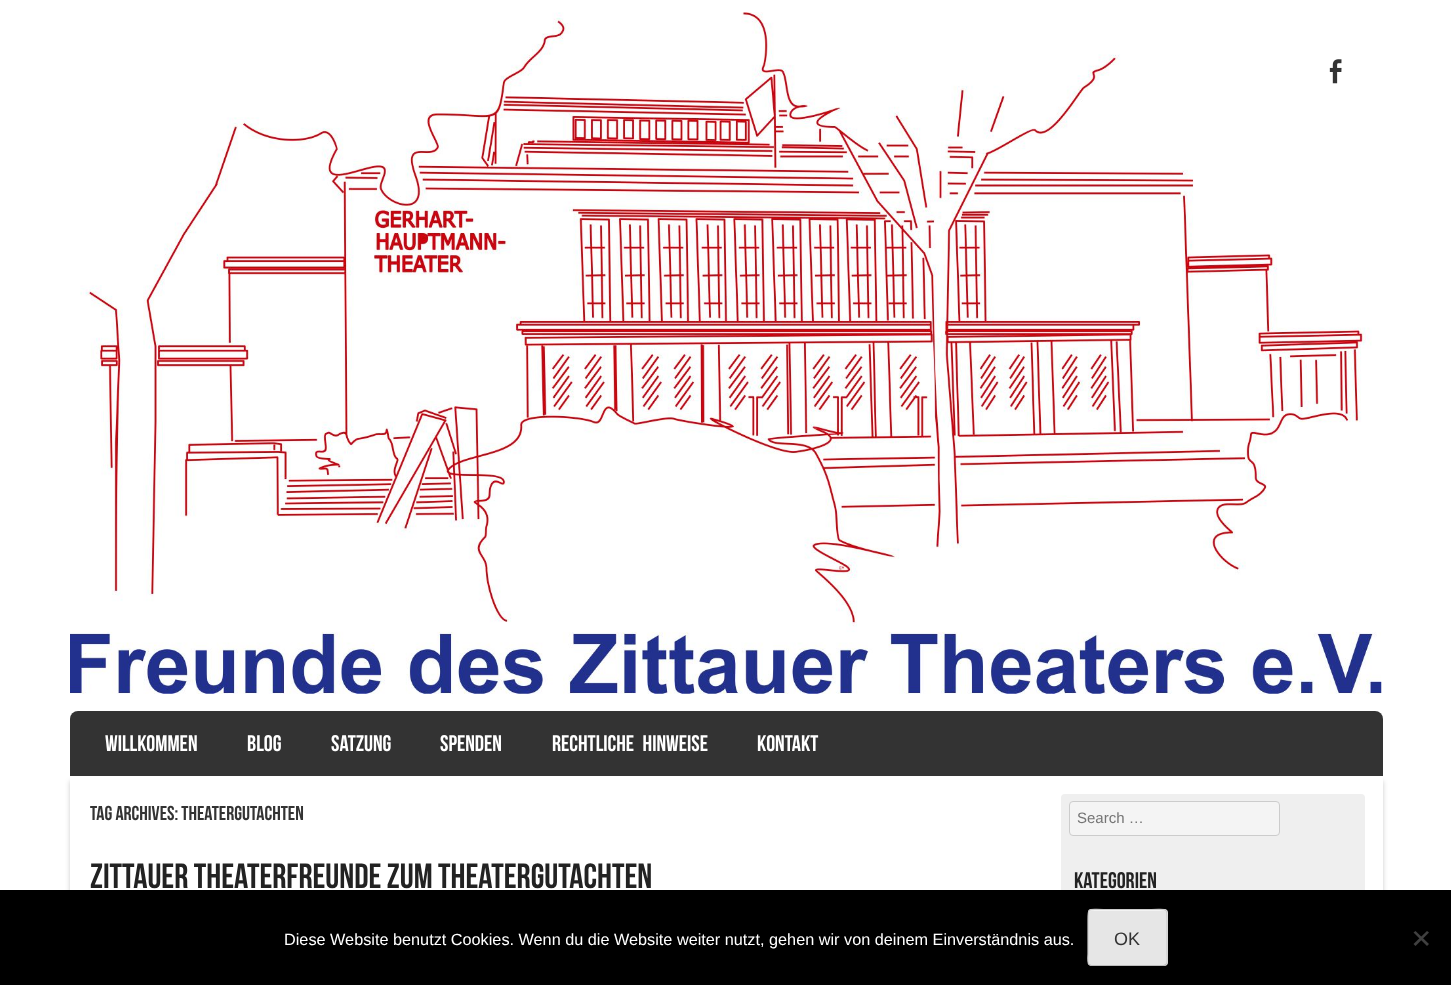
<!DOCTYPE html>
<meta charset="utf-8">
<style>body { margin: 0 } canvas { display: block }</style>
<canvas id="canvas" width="1451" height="985"></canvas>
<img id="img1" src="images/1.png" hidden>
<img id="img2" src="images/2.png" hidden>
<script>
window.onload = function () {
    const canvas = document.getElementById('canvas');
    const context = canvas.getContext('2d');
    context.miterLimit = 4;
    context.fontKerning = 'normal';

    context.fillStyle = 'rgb(255, 255, 255)';
    context.fillRect(0, 0, 1451, 985);
    context.drawImage(document.getElementById('img1'), 70, 12, 1312, 682);
    context.drawImage(document.getElementById('img2'), 1329, 59, 13, 25);
    context.fillStyle = 'rgb(51, 51, 51)';
    context.beginPath();
    context.roundRect(70, 711, 1313, 65, [8, 8, 0, 0]);
    context.fill();
    context.fillStyle = 'rgba(0, 0, 0, 0.2)';
    context.filter = 'blur(2.5px)';
    context.beginPath();
    context.rect(70, 781, 1313, 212);
    context.fill();
    context.filter = 'none';
    context.fillStyle = 'rgb(255, 255, 255)';
    context.fillRect(70, 777, 1313, 113);
    context.fillStyle = 'rgb(239, 239, 239)';
    context.beginPath();
    context.roundRect(1061, 794, 304, 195, 4);
    context.fill();
    context.fillStyle = 'rgb(244, 244, 244)';
    context.beginPath();
    context.roundRect(1069.5, 801.5, 210, 34, 3.5);
    context.fill();
    context.strokeStyle = 'rgb(204, 204, 204)';
    context.stroke();
    context.fillStyle = 'rgb(0, 0, 0)';
    context.fillRect(0, 890, 1451, 95);
    context.fillStyle = 'rgb(230, 230, 230)';
    context.beginPath();
    context.roundRect(1088, 909, 80, 57, 4);
    context.fill();
    context.fillStyle = 'rgb(243, 243, 243)';
    context.beginPath();
    context.moveTo(1091, 911);
    context.lineTo(1164, 911);
    context.bezierCurveTo(1165, 911, 1166, 912, 1166, 914);
    context.bezierCurveTo(1166, 907, 1157, 910, 1152, 910);
    context.lineTo(1104, 910);
    context.bezierCurveTo(1098, 910, 1089, 907, 1089, 914);
    context.bezierCurveTo(1089, 912, 1090, 911, 1091, 911);
    context.closePath();
    context.fill();
    context.beginPath();
    context.moveTo(1166, 964.5);
    context.lineTo(1164, 965.5);
    context.lineTo(1091, 965.5);
    context.lineTo(1089, 964.5);
    context.strokeStyle = 'rgb(187, 187, 187)';
    context.lineWidth = 1.2;
    context.stroke();
    context.beginPath();
    context.moveTo(1089, 964.5);
    context.bezierCurveTo(1087, 962.5, 1088, 954.5, 1088, 954);
    context.lineTo(1088, 921);
    context.bezierCurveTo(1088, 906.5, 1087.5, 909.5, 1103.5, 909.5);
    context.lineTo(1151.5, 909.5);
    context.bezierCurveTo(1167.5, 909.5, 1167, 906.5, 1167, 921);
    context.lineTo(1167, 954);
    context.bezierCurveTo(1167, 954.5, 1168, 962.5, 1166, 964.5);
    context.strokeStyle = 'rgb(204, 204, 204)';
    context.stroke();
    context.fillStyle = 'rgb(64, 64, 64)';
    context.beginPath();
    context.moveTo(1427, 931);
    context.lineTo(1429, 932.5);
    context.lineTo(1415.5, 946);
    context.lineTo(1413.5, 944);
    context.closePath();
    context.fill();
    context.beginPath();
    context.moveTo(1413.5, 932.5);
    context.lineTo(1415.5, 931);
    context.lineTo(1429, 944);
    context.lineTo(1427, 946);
    context.closePath();
    context.fill();
    context.font = '22.5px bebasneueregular';
    context.fillStyle = 'rgb(255, 255, 255)';
    context.fillText('WILLKOMMEN', 105, 751);
    context.fillText('BLOG', 247, 751);
    context.fillText('SATZUNG', 331, 751);
    context.fillText('SPENDEN', 440, 751);
    context.wordSpacing = '5px';
    context.fillText('RECHTLICHE HINWEISE', 552, 751);
    context.wordSpacing = '0px';
    context.fillText('KONTAKT', 757, 751);
    context.font = '20px bebasneueregular';
    context.fillStyle = 'rgb(51, 51, 51)';
    context.fillText('Tag Archives: Theatergutachten', 90, 820);
    context.font = '35px bebasneueregular';
    context.fillStyle = 'rgb(34, 34, 34)';
    context.fillText('Zittauer Theaterfreunde zum Theatergutachten', 90, 888);
    context.font = '15px Liberation Sans';
    context.fillStyle = 'rgb(117, 117, 117)';
    context.fillText('Search …', 1077, 823);
    context.font = '22.5px bebasneueregular';
    context.fillStyle = 'rgb(34, 34, 34)';
    context.fillText('Kategorien', 1074, 888);
    context.font = '16.25px Liberation Sans';
    context.fillStyle = 'rgb(255, 255, 255)';
    context.fillText('Diese Website benutzt Cookies. Wenn du die Website weiter nutzt, gehen wir von deinem Einverständnis aus.', 284, 945);
    context.font = '18px Liberation Sans';
    context.fillStyle = 'rgb(51, 51, 51)';
    context.fillText('OK', 1114, 945);
};
</script>
